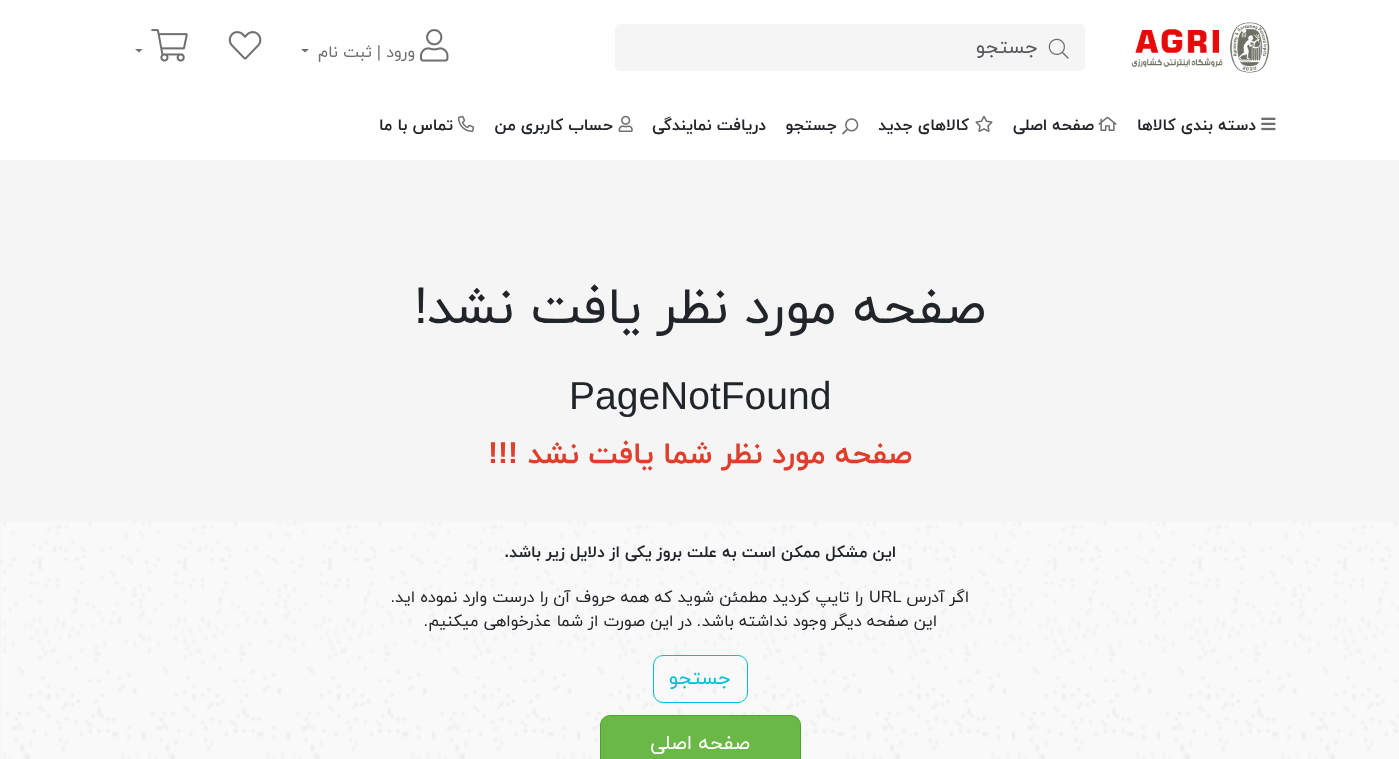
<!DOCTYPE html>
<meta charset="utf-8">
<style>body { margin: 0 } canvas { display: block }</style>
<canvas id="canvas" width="1399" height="759"></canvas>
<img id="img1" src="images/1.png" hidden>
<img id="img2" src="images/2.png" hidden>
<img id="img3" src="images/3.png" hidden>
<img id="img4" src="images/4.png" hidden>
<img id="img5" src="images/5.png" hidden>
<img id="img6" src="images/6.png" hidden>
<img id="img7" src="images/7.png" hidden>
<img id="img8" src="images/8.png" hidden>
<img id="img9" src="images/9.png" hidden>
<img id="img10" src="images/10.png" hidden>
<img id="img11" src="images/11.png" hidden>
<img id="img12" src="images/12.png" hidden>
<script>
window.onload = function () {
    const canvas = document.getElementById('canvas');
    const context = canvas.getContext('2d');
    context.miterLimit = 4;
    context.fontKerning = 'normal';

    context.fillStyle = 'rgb(245, 245, 245)';
    context.fillRect(0, 0, 1399, 759);
    context.drawImage(document.getElementById('img1'), 1, 521, 1398, 238);
    context.fillStyle = 'rgb(255, 255, 255)';
    context.fillRect(0, 0, 1399, 160);
    context.drawImage(document.getElementById('img2'), 1131, 22, 139, 51);
    context.fillStyle = 'rgb(245, 245, 245)';
    context.beginPath();
    context.roundRect(615, 24, 470, 47, 5);
    context.fill();
    context.drawImage(document.getElementById('img3'), 1048, 38, 21, 21);
    context.drawImage(document.getElementById('img4'), 420, 29, 29, 33);
    context.fillStyle = 'rgb(111, 111, 111)';
    context.beginPath();
    context.moveTo(301, 49);
    context.lineTo(309, 49);
    context.lineTo(305, 52.5);
    context.closePath();
    context.fill();
    context.drawImage(document.getElementById('img5'), 228, 31, 34, 29);
    context.drawImage(document.getElementById('img6'), 151, 29, 37, 33);
    context.beginPath();
    context.moveTo(135, 49);
    context.lineTo(142.5, 49);
    context.lineTo(139, 52.5);
    context.closePath();
    context.fill();
    context.drawImage(document.getElementById('img7'), 1261, 117, 15, 14);
    context.drawImage(document.getElementById('img8'), 1098, 116, 19, 15);
    context.drawImage(document.getElementById('img9'), 975, 115, 18, 17);
    context.drawImage(document.getElementById('img10'), 842, 118, 17, 17);
    context.drawImage(document.getElementById('img11'), 618, 115, 15, 17);
    context.drawImage(document.getElementById('img12'), 457, 115, 18, 17);
    context.beginPath();
    context.roundRect(653.5, 655.5, 94, 47, 9.5);
    context.strokeStyle = 'rgb(0, 191, 214)';
    context.stroke();
    context.fillStyle = 'rgb(106, 185, 70)';
    context.beginPath();
    context.roundRect(600.5, 715.5, 200, 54, 9.5);
    context.fill();
    context.strokeStyle = 'rgb(74, 164, 46)';
    context.stroke();
    context.direction = 'rtl';
    context.font = '20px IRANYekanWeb';
    context.fillStyle = 'rgb(86, 89, 92)';
    context.fillText('جستجو', 1038, 53);
    context.font = '16.25px IRANYekanWeb';
    context.fillStyle = 'rgb(111, 111, 111)';
    context.fillText('ورود', 415, 57);
    context.font = '16.25px Liberation Sans';
    context.fillText('|', 381, 57);
    context.font = '16.25px IRANYekanWeb';
    context.fillText('ثبت نام', 372, 57);
    context.font = 'bold 16.25px IRANYekanWeb';
    context.fillStyle = 'rgb(33, 37, 41)';
    context.fillText('دسته بندی کالاها', 1256, 130);
    context.fillText('صفحه اصلی', 1094, 130);
    context.fillText('کالاهای جدید', 969, 130);
    context.fillText('جستجو', 837, 130);
    context.fillText('دریافت نمایندگی', 766, 130);
    context.fillText('حساب کاربری من', 613, 130);
    context.fillText('تماس با ما', 453, 130);
    context.font = '51.5px IRANYekanWeb';
    context.fillText('صفحه مورد نظر یافت نشد', 986, 323);
    context.font = '51.5px Liberation Sans';
    context.fillText('!', 428, 323);
    context.direction = 'ltr';
    context.font = '39px Liberation Sans';
    context.fillText('PageNotFound', 569, 409);
    context.direction = 'rtl';
    context.font = 'bold 30px IRANYekanWeb';
    context.fillStyle = 'rgb(224, 62, 45)';
    context.fillText('صفحه مورد نظر شما یافت نشد', 912, 463);
    context.font = 'bold 30px Liberation Sans';
    context.fillText('!!!', 518, 463);
    context.font = 'bold 16.25px IRANYekanWeb';
    context.fillStyle = 'rgb(33, 37, 41)';
    context.fillText('این مشکل ممکن است به علت بروز یکی از دلایل زیر باشد', 896, 557);
    context.font = 'bold 16.25px Liberation Sans';
    context.fillText('.', 509, 557);
    context.font = '16.25px IRANYekanWeb';
    context.fillText('اگر آدرس', 969, 602);
    context.direction = 'ltr';
    context.font = '16.25px Liberation Sans';
    context.fillText('URL', 869, 602);
    context.direction = 'rtl';
    context.font = '16.25px IRANYekanWeb';
    context.fillText('را تایپ کردید مطمئن شوید که همه حروف آن را درست وارد نموده اید', 863, 602);
    context.font = '16.25px Liberation Sans';
    context.fillText('.', 395, 602);
    context.font = '16.25px IRANYekanWeb';
    context.fillText('این صفحه دیگر وجود نداشته باشد', 937, 626);
    context.font = '16.25px Liberation Sans';
    context.fillText('.', 701, 626);
    context.font = '16.25px IRANYekanWeb';
    context.fillText('در این صورت از شما عذرخواهی میکنیم', 692, 626);
    context.font = '16.25px Liberation Sans';
    context.fillText('.', 428, 626);
    context.font = '20px IRANYekanWeb';
    context.fillStyle = 'rgb(0, 191, 214)';
    context.fillText('جستجو', 731, 684);
    context.fillStyle = 'rgb(255, 255, 255)';
    context.fillText('صفحه اصلی', 750, 749);
};
</script>
